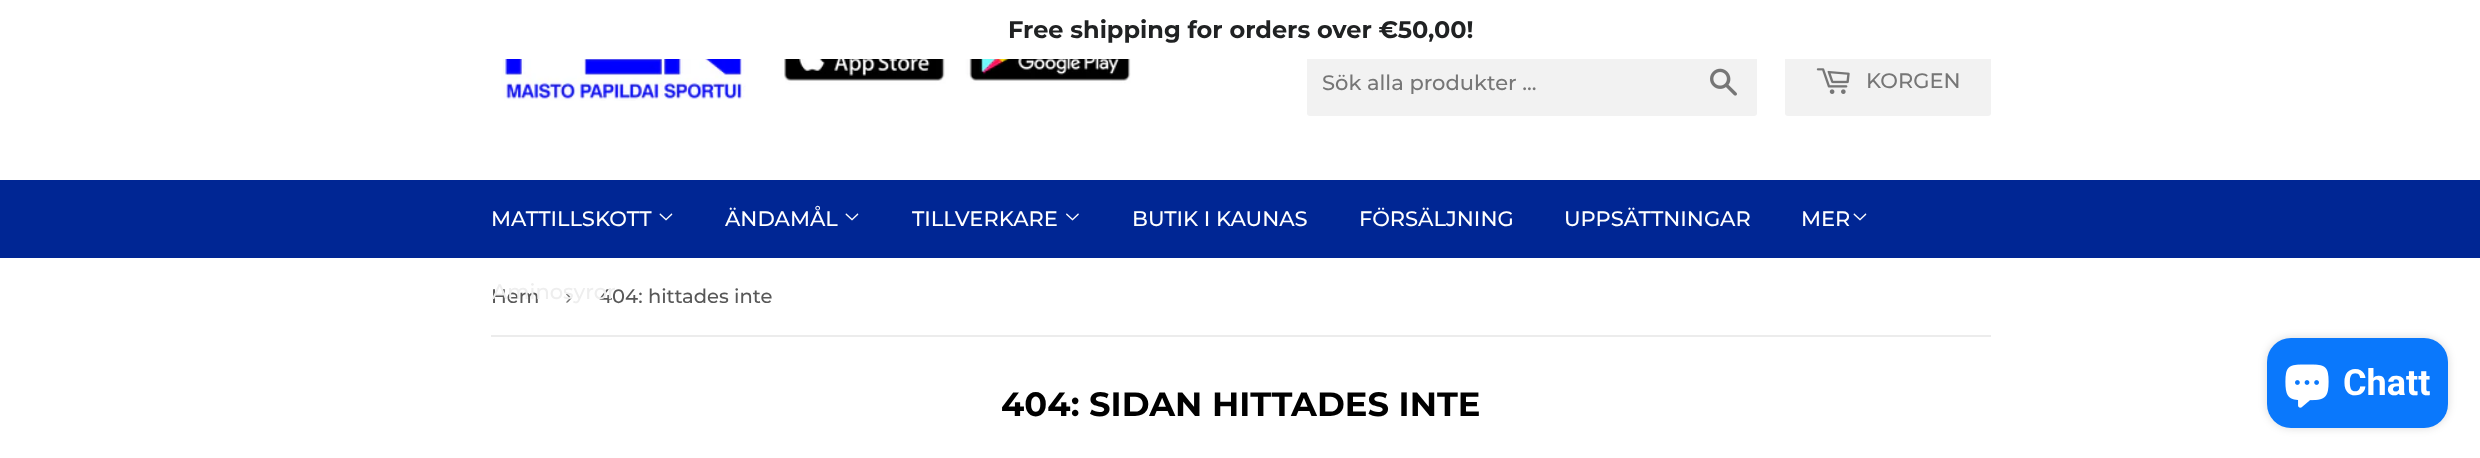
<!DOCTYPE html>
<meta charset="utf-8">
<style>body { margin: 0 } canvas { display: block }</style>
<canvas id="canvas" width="2480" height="458"></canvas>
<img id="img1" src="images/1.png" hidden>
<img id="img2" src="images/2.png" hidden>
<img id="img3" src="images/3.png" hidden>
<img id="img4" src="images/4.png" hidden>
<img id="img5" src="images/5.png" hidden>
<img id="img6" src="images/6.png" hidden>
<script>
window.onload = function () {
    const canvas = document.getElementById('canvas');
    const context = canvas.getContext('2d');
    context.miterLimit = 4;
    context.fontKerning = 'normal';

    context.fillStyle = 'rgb(255, 255, 255)';
    context.fillRect(0, 0, 2480, 458);
    context.fillStyle = 'rgb(242, 242, 242)';
    context.beginPath();
    context.roundRect(1307, 50, 450, 66, 3);
    context.fill();
    context.beginPath();
    context.roundRect(1785, 50, 206, 66, 3);
    context.fill();
    context.fillStyle = 'rgb(255, 255, 255)';
    context.fillRect(1307, 50, 684, 9);
    context.drawImage(document.getElementById('img1'), 501, 59, 630, 42);
    context.drawImage(document.getElementById('img2'), 1710, 68, 27, 28);
    context.drawImage(document.getElementById('img3'), 1816, 68, 34, 26);
    context.fillStyle = 'rgb(0, 38, 148)';
    context.fillRect(0, 180, 2480, 78);
    context.drawImage(document.getElementById('img4'), 659, 213, 14, 8);
    context.drawImage(document.getElementById('img4'), 845, 213, 14, 8);
    context.drawImage(document.getElementById('img5'), 1066, 213, 13, 8);
    context.drawImage(document.getElementById('img4'), 1853, 213, 14, 8);
    context.fillStyle = 'rgb(236, 236, 236)';
    context.fillRect(491, 335, 1500, 2);
    context.fillStyle = 'rgba(0, 0, 0, 0.15)';
    context.filter = 'blur(4px)';
    context.beginPath();
    context.roundRect(2267, 338, 181, 90, 24);
    context.fill();
    context.filter = 'none';
    context.fillStyle = 'rgb(10, 120, 252)';
    context.beginPath();
    context.roundRect(2267, 338, 181, 90, 24);
    context.fill();
    context.drawImage(document.getElementById('img6'), 2285, 364, 44, 44);
    context.font = 'bold 24px Montserrat';
    context.fillStyle = 'rgb(32, 34, 35)';
    context.fillText('Free shipping for orders over €50,00!', 1008, 38);
    context.font = '500 21px Montserrat';
    context.fillStyle = 'rgb(118, 118, 118)';
    context.fillText('Sök alla produkter ...', 1322, 90);
    context.fillText('KORGEN', 1866, 88);
    context.fillStyle = 'rgb(255, 255, 255)';
    context.fillText('MATTILLSKOTT', 491, 226);
    context.fillText('ÄNDAMÅL', 725, 226);
    context.fillText('TILLVERKARE', 912, 226);
    context.fillText('BUTIK I KAUNAS', 1132, 226);
    context.fillText('FÖRSÄLJNING', 1359, 226);
    context.fillText('UPPSÄTTNINGAR', 1564, 226);
    context.fillText('MER', 1801, 226);
    context.font = '500 19.5px Montserrat';
    context.fillStyle = 'rgb(88, 88, 88)';
    context.fillText('Hem', 491, 303);
    context.font = '22px Liberation Sans';
    context.fillStyle = 'rgb(118, 118, 118)';
    context.fillText('›', 565, 304);
    context.font = '500 19.5px Montserrat';
    context.fillStyle = 'rgb(88, 88, 88)';
    context.fillText('404: hittades inte', 599, 303);
    context.font = '500 21px Montserrat';
    context.fillStyle = 'rgb(238, 238, 238)';
    context.fillText('Aminosyror', 492, 299);
    context.font = 'bold 33.75px Montserrat';
    context.fillStyle = 'rgb(0, 0, 0)';
    context.fillText('404: SIDAN HITTADES INTE', 1001, 416);
    context.font = 'bold 36px Roboto';
    context.fillStyle = 'rgb(255, 255, 255)';
    context.fillText('Chatt', 2343, 395);
};
</script>
